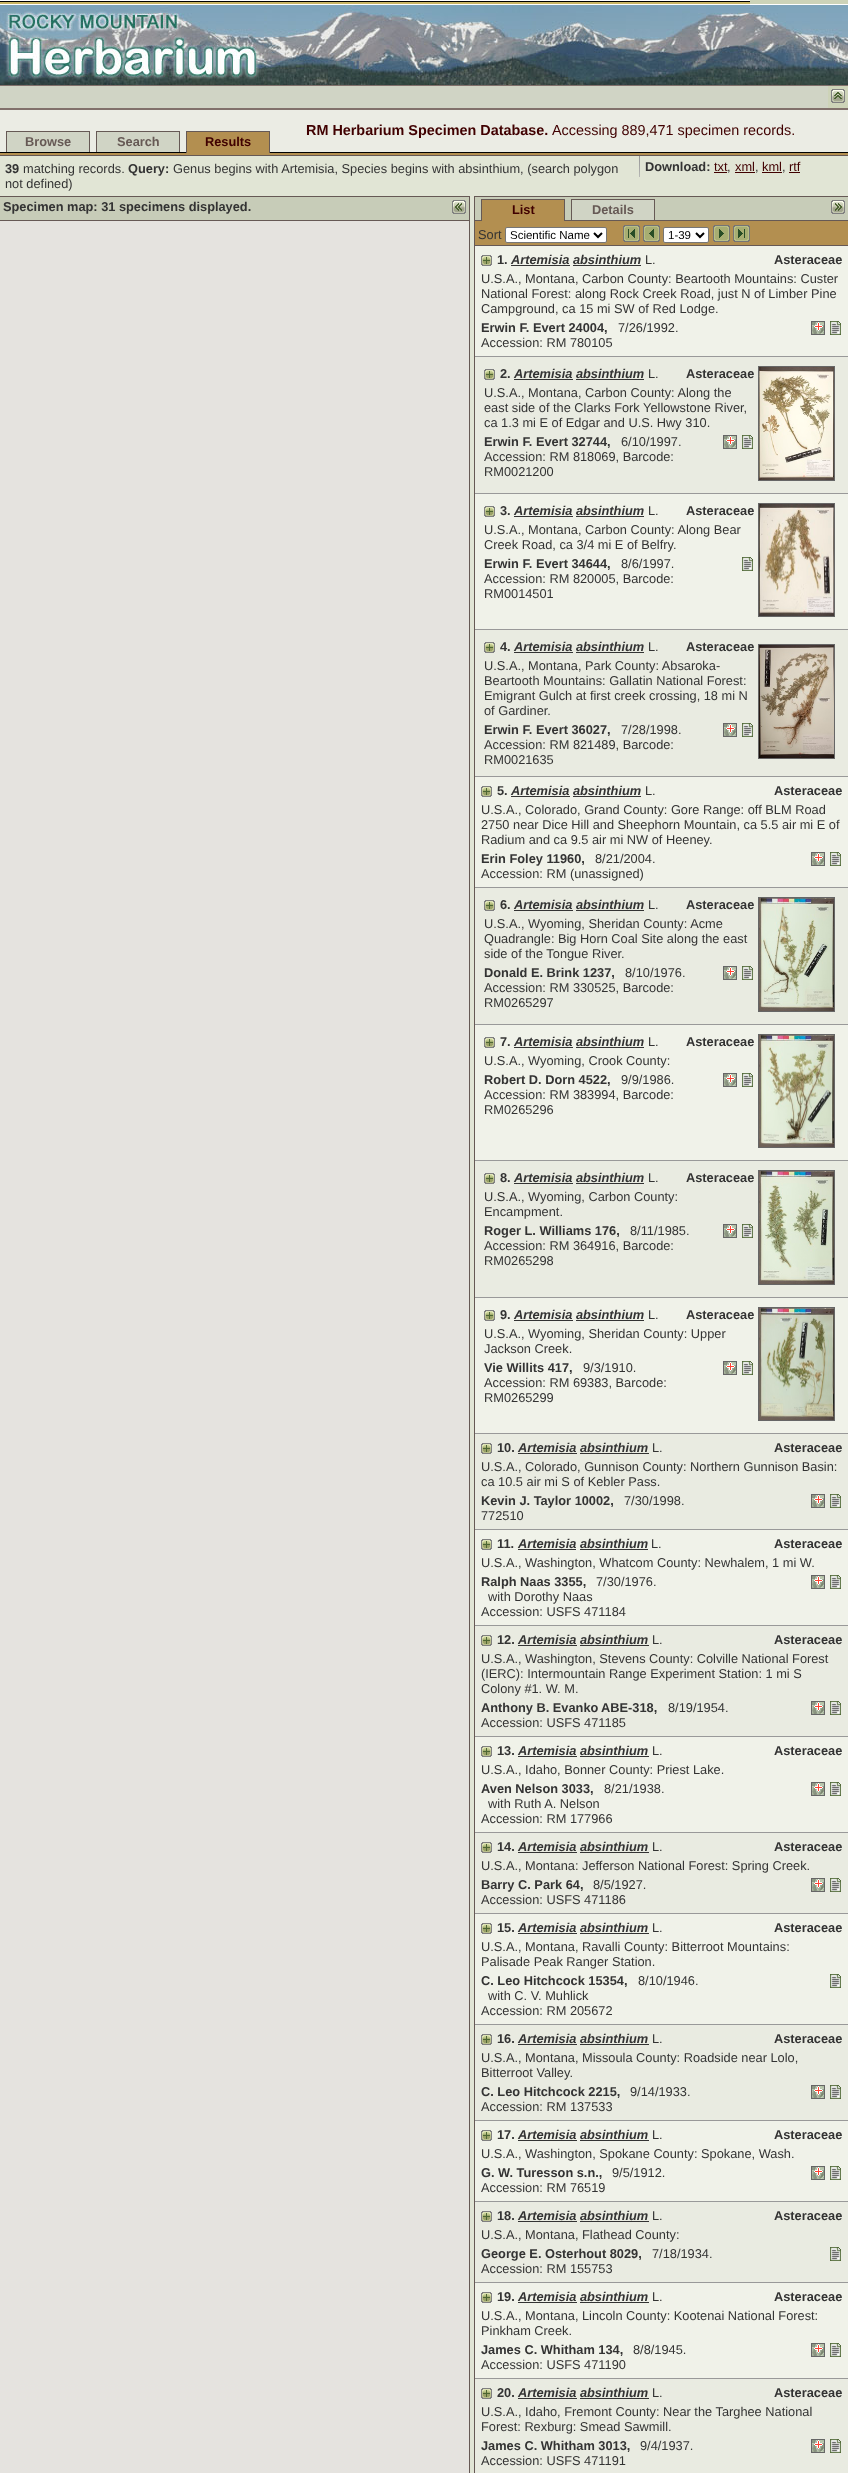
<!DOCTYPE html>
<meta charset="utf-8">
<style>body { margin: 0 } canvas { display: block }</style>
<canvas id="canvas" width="848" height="2473"></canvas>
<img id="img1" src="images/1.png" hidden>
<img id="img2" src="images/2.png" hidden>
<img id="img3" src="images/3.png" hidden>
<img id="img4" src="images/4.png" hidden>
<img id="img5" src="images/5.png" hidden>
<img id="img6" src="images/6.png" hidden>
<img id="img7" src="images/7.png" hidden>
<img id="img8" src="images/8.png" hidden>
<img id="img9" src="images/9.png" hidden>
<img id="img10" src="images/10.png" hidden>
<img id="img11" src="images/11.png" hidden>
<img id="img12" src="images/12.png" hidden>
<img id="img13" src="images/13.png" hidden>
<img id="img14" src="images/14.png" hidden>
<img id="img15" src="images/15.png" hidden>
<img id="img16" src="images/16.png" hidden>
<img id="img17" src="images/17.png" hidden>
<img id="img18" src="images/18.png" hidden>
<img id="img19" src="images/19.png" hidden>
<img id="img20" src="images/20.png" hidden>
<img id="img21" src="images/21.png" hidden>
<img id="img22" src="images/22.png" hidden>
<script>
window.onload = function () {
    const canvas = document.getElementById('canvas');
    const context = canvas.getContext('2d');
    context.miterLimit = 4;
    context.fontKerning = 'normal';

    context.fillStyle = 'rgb(205, 211, 184)';
    context.fillRect(0, 0, 848, 2473);
    context.fillStyle = 'rgb(0, 0, 0)';
    context.fillRect(0, 1, 750, 1);
    context.fillStyle = 'rgb(255, 255, 255)';
    context.fillRect(0, 0, 750, 1);
    context.fillStyle = 'rgb(202, 181, 99)';
    context.fillRect(0, 2, 750, 2);
    context.drawImage(document.getElementById('img1'), 0, 5, 848, 80);
    context.fillStyle = 'rgb(255, 255, 255)';
    context.fillRect(0, 4, 848, 1);
    context.drawImage(document.getElementById('img2'), 0, 9, 267, 76);
    context.fillStyle = 'rgb(208, 212, 197)';
    context.fillRect(0, 86, 828, 22);
    context.fillStyle = 'rgb(129, 112, 107)';
    context.fillRect(0, 85, 848, 1);
    context.fillRect(0, 108, 848, 2);
    context.drawImage(document.getElementById('img3'), 831, 89, 14, 14);
    context.fillStyle = 'rgb(235, 236, 228)';
    context.fillRect(0, 110, 848, 42);
    context.fillStyle = 'rgb(0, 0, 0)';
    context.fillRect(0, 152, 848, 1);
    context.fillStyle = 'rgb(208, 212, 197)';
    context.fillRect(7, 132, 82, 20);
    context.fillStyle = 'rgb(102, 89, 85)';
    context.fillRect(6, 131, 84, 1);
    context.fillRect(89, 131, 1, 21);
    context.fillRect(6, 131, 1, 21);
    context.fillStyle = 'rgb(208, 212, 197)';
    context.fillRect(97, 132, 82, 20);
    context.fillStyle = 'rgb(102, 89, 85)';
    context.fillRect(96, 131, 84, 1);
    context.fillRect(179, 131, 1, 21);
    context.fillRect(96, 131, 1, 21);
    context.fillStyle = 'rgb(179, 143, 80)';
    context.fillRect(187, 132, 82, 21);
    context.fillStyle = 'rgb(102, 89, 85)';
    context.fillRect(186, 131, 84, 1);
    context.fillRect(269, 131, 1, 22);
    context.fillRect(186, 131, 1, 22);
    context.fillStyle = 'rgb(179, 143, 80)';
    context.fillRect(0, 153, 848, 2);
    context.fillStyle = 'rgb(102, 89, 85)';
    context.fillRect(0, 155, 848, 1);
    context.fillStyle = 'rgb(225, 229, 213)';
    context.fillRect(0, 156, 848, 40);
    context.drawImage(document.getElementById('img4'), 639, 156, 1, 21);
    context.fillStyle = 'rgb(64, 0, 0)';
    context.fillRect(714, 172, 13, 1);
    context.fillRect(735, 172, 20, 1);
    context.fillRect(762, 172, 20, 1);
    context.fillRect(789, 172, 11, 1);
    context.fillStyle = 'rgb(199, 204, 184)';
    context.fillRect(0, 197, 469, 23);
    context.fillStyle = 'rgb(102, 89, 85)';
    context.fillRect(0, 220, 469, 1);
    context.fillRect(0, 196, 469, 1);
    context.drawImage(document.getElementById('img5'), 452, 200, 14, 14);
    context.fillStyle = 'rgb(229, 227, 223)';
    context.fillRect(0, 221, 469, 2252);
    context.fillStyle = 'rgb(225, 229, 213)';
    context.fillRect(470, 196, 4, 2277);
    context.fillStyle = 'rgb(102, 89, 85)';
    context.fillRect(474, 196, 1, 2277);
    context.fillRect(469, 196, 1, 2277);
    context.fillStyle = 'rgb(199, 204, 184)';
    context.fillRect(475, 197, 373, 23);
    context.fillStyle = 'rgb(102, 89, 85)';
    context.fillRect(475, 220, 373, 1);
    context.fillRect(475, 196, 373, 1);
    context.fillStyle = 'rgb(179, 143, 80)';
    context.fillRect(482, 200, 82, 21);
    context.fillStyle = 'rgb(102, 89, 85)';
    context.fillRect(481, 199, 84, 1);
    context.fillRect(564, 199, 1, 22);
    context.fillRect(481, 199, 1, 22);
    context.fillStyle = 'rgb(208, 212, 197)';
    context.fillRect(572, 200, 82, 20);
    context.fillStyle = 'rgb(102, 89, 85)';
    context.fillRect(571, 199, 84, 1);
    context.fillRect(654, 199, 1, 21);
    context.fillRect(571, 199, 1, 21);
    context.drawImage(document.getElementById('img6'), 831, 200, 14, 14);
    context.fillStyle = 'rgb(179, 143, 80)';
    context.fillRect(475, 221, 373, 24);
    context.fillStyle = 'rgb(102, 89, 85)';
    context.fillRect(475, 245, 373, 1);
    context.fillStyle = 'rgb(255, 255, 255)';
    context.beginPath();
    context.roundRect(505.5, 227.5, 101, 15, 1.5);
    context.fill();
    context.strokeStyle = 'rgb(118, 118, 118)';
    context.stroke();
    context.beginPath();
    context.moveTo(594, 233);
    context.lineTo(598, 237);
    context.lineTo(602, 233);
    context.strokeStyle = 'rgb(0, 0, 0)';
    context.lineWidth = 2;
    context.stroke();
    context.drawImage(document.getElementById('img7'), 623, 225, 17, 17);
    context.drawImage(document.getElementById('img8'), 643, 225, 17, 17);
    context.beginPath();
    context.roundRect(663.5, 227.5, 45, 15, 1.5);
    context.fill();
    context.strokeStyle = 'rgb(118, 118, 118)';
    context.lineWidth = 1;
    context.stroke();
    context.beginPath();
    context.moveTo(696, 233);
    context.lineTo(700, 237);
    context.lineTo(704, 233);
    context.strokeStyle = 'rgb(0, 0, 0)';
    context.lineWidth = 2;
    context.stroke();
    context.drawImage(document.getElementById('img9'), 713, 225, 17, 17);
    context.drawImage(document.getElementById('img10'), 733, 225, 17, 17);
    context.fillStyle = 'rgb(240, 242, 233)';
    context.fillRect(475, 246, 373, 110);
    context.fillStyle = 'rgb(153, 153, 153)';
    context.fillRect(475, 356, 373, 1);
    context.drawImage(document.getElementById('img11'), 481, 255, 11, 11);
    context.fillStyle = 'rgb(51, 51, 51)';
    context.fillRect(511, 265, 59, 1);
    context.fillRect(573, 265, 68, 1);
    context.drawImage(document.getElementById('img12'), 811, 321, 14, 14);
    context.drawImage(document.getElementById('img13'), 830, 321, 11, 14);
    context.fillStyle = 'rgb(233, 235, 225)';
    context.fillRect(475, 357, 373, 136);
    context.fillStyle = 'rgb(153, 153, 153)';
    context.fillRect(475, 493, 373, 1);
    context.drawImage(document.getElementById('img14'), 484, 369, 11, 11);
    context.fillStyle = 'rgb(51, 51, 51)';
    context.fillRect(514, 379, 59, 1);
    context.fillRect(576, 379, 68, 1);
    context.drawImage(document.getElementById('img12'), 723, 435, 14, 14);
    context.drawImage(document.getElementById('img15'), 742, 435, 11, 14);
    context.strokeStyle = 'rgb(102, 102, 102)';
    context.lineWidth = 1;
    context.strokeRect(758.5, 366.5, 76, 114);
    context.drawImage(document.getElementById('img16'), 759, 367, 75, 113);
    context.fillStyle = 'rgb(240, 242, 233)';
    context.fillRect(475, 494, 373, 135);
    context.fillStyle = 'rgb(153, 153, 153)';
    context.fillRect(475, 629, 373, 1);
    context.drawImage(document.getElementById('img11'), 484, 506, 11, 11);
    context.fillStyle = 'rgb(51, 51, 51)';
    context.fillRect(514, 516, 59, 1);
    context.fillRect(576, 516, 68, 1);
    context.drawImage(document.getElementById('img13'), 742, 557, 11, 14);
    context.strokeRect(758.5, 503.5, 76, 113);
    context.drawImage(document.getElementById('img17'), 759, 504, 75, 112);
    context.fillStyle = 'rgb(233, 235, 225)';
    context.fillRect(475, 630, 373, 146);
    context.fillStyle = 'rgb(153, 153, 153)';
    context.fillRect(475, 776, 373, 1);
    context.drawImage(document.getElementById('img14'), 484, 642, 11, 11);
    context.fillStyle = 'rgb(51, 51, 51)';
    context.fillRect(514, 652, 59, 1);
    context.fillRect(576, 652, 68, 1);
    context.drawImage(document.getElementById('img12'), 723, 723, 14, 14);
    context.drawImage(document.getElementById('img15'), 742, 723, 11, 14);
    context.strokeRect(758.5, 644.5, 76, 114);
    context.drawImage(document.getElementById('img18'), 759, 645, 75, 113);
    context.fillStyle = 'rgb(240, 242, 233)';
    context.fillRect(475, 777, 373, 110);
    context.fillStyle = 'rgb(153, 153, 153)';
    context.fillRect(475, 887, 373, 1);
    context.drawImage(document.getElementById('img11'), 481, 786, 11, 11);
    context.fillStyle = 'rgb(51, 51, 51)';
    context.fillRect(511, 796, 59, 1);
    context.fillRect(573, 796, 68, 1);
    context.drawImage(document.getElementById('img12'), 811, 852, 14, 14);
    context.drawImage(document.getElementById('img13'), 830, 852, 11, 14);
    context.fillStyle = 'rgb(233, 235, 225)';
    context.fillRect(475, 888, 373, 136);
    context.fillStyle = 'rgb(153, 153, 153)';
    context.fillRect(475, 1024, 373, 1);
    context.drawImage(document.getElementById('img14'), 484, 900, 11, 11);
    context.fillStyle = 'rgb(51, 51, 51)';
    context.fillRect(514, 910, 59, 1);
    context.fillRect(576, 910, 68, 1);
    context.drawImage(document.getElementById('img12'), 723, 966, 14, 14);
    context.drawImage(document.getElementById('img15'), 742, 966, 11, 14);
    context.strokeRect(758.5, 897.5, 76, 114);
    context.drawImage(document.getElementById('img19'), 759, 898, 75, 113);
    context.fillStyle = 'rgb(240, 242, 233)';
    context.fillRect(475, 1025, 373, 135);
    context.fillStyle = 'rgb(153, 153, 153)';
    context.fillRect(475, 1160, 373, 1);
    context.drawImage(document.getElementById('img11'), 484, 1037, 11, 11);
    context.fillStyle = 'rgb(51, 51, 51)';
    context.fillRect(514, 1047, 59, 1);
    context.fillRect(576, 1047, 68, 1);
    context.drawImage(document.getElementById('img12'), 723, 1073, 14, 14);
    context.drawImage(document.getElementById('img13'), 742, 1073, 11, 14);
    context.strokeRect(758.5, 1034.5, 76, 113);
    context.drawImage(document.getElementById('img20'), 759, 1035, 75, 112);
    context.fillStyle = 'rgb(233, 235, 225)';
    context.fillRect(475, 1161, 373, 136);
    context.fillStyle = 'rgb(153, 153, 153)';
    context.fillRect(475, 1297, 373, 1);
    context.drawImage(document.getElementById('img14'), 484, 1173, 11, 11);
    context.fillStyle = 'rgb(51, 51, 51)';
    context.fillRect(514, 1183, 59, 1);
    context.fillRect(576, 1183, 68, 1);
    context.drawImage(document.getElementById('img12'), 723, 1224, 14, 14);
    context.drawImage(document.getElementById('img15'), 742, 1224, 11, 14);
    context.strokeRect(758.5, 1170.5, 76, 114);
    context.drawImage(document.getElementById('img21'), 759, 1171, 75, 113);
    context.fillStyle = 'rgb(240, 242, 233)';
    context.fillRect(475, 1298, 373, 135);
    context.fillStyle = 'rgb(153, 153, 153)';
    context.fillRect(475, 1433, 373, 1);
    context.drawImage(document.getElementById('img11'), 484, 1310, 11, 11);
    context.fillStyle = 'rgb(51, 51, 51)';
    context.fillRect(514, 1320, 59, 1);
    context.fillRect(576, 1320, 68, 1);
    context.drawImage(document.getElementById('img12'), 723, 1361, 14, 14);
    context.drawImage(document.getElementById('img13'), 742, 1361, 11, 14);
    context.strokeRect(758.5, 1307.5, 76, 113);
    context.drawImage(document.getElementById('img22'), 759, 1308, 75, 112);
    context.fillStyle = 'rgb(233, 235, 225)';
    context.fillRect(475, 1434, 373, 95);
    context.fillStyle = 'rgb(153, 153, 153)';
    context.fillRect(475, 1529, 373, 1);
    context.drawImage(document.getElementById('img14'), 481, 1443, 11, 11);
    context.fillStyle = 'rgb(51, 51, 51)';
    context.fillRect(518, 1453, 59, 1);
    context.fillRect(580, 1453, 69, 1);
    context.drawImage(document.getElementById('img12'), 811, 1494, 14, 14);
    context.drawImage(document.getElementById('img15'), 830, 1494, 11, 14);
    context.fillStyle = 'rgb(240, 242, 233)';
    context.fillRect(475, 1530, 373, 95);
    context.fillStyle = 'rgb(153, 153, 153)';
    context.fillRect(475, 1625, 373, 1);
    context.drawImage(document.getElementById('img11'), 481, 1539, 11, 11);
    context.fillStyle = 'rgb(51, 51, 51)';
    context.fillRect(518, 1549, 58, 1);
    context.fillRect(580, 1549, 68, 1);
    context.drawImage(document.getElementById('img12'), 811, 1575, 14, 14);
    context.drawImage(document.getElementById('img13'), 830, 1575, 11, 14);
    context.fillStyle = 'rgb(233, 235, 225)';
    context.fillRect(475, 1626, 373, 110);
    context.fillStyle = 'rgb(153, 153, 153)';
    context.fillRect(475, 1736, 373, 1);
    context.drawImage(document.getElementById('img14'), 481, 1635, 11, 11);
    context.fillStyle = 'rgb(51, 51, 51)';
    context.fillRect(518, 1645, 59, 1);
    context.fillRect(580, 1645, 69, 1);
    context.drawImage(document.getElementById('img12'), 811, 1701, 14, 14);
    context.drawImage(document.getElementById('img15'), 830, 1701, 11, 14);
    context.fillStyle = 'rgb(240, 242, 233)';
    context.fillRect(475, 1737, 373, 95);
    context.fillStyle = 'rgb(153, 153, 153)';
    context.fillRect(475, 1832, 373, 1);
    context.drawImage(document.getElementById('img11'), 481, 1746, 11, 11);
    context.fillStyle = 'rgb(51, 51, 51)';
    context.fillRect(518, 1756, 59, 1);
    context.fillRect(580, 1756, 69, 1);
    context.drawImage(document.getElementById('img12'), 811, 1782, 14, 14);
    context.drawImage(document.getElementById('img13'), 830, 1782, 11, 14);
    context.fillStyle = 'rgb(233, 235, 225)';
    context.fillRect(475, 1833, 373, 80);
    context.fillStyle = 'rgb(153, 153, 153)';
    context.fillRect(475, 1913, 373, 1);
    context.drawImage(document.getElementById('img14'), 481, 1842, 11, 11);
    context.fillStyle = 'rgb(51, 51, 51)';
    context.fillRect(518, 1852, 59, 1);
    context.fillRect(580, 1852, 69, 1);
    context.drawImage(document.getElementById('img12'), 811, 1878, 14, 14);
    context.drawImage(document.getElementById('img15'), 830, 1878, 11, 14);
    context.fillStyle = 'rgb(240, 242, 233)';
    context.fillRect(475, 1914, 373, 110);
    context.fillStyle = 'rgb(153, 153, 153)';
    context.fillRect(475, 2024, 373, 1);
    context.drawImage(document.getElementById('img11'), 481, 1923, 11, 11);
    context.fillStyle = 'rgb(51, 51, 51)';
    context.fillRect(518, 1933, 59, 1);
    context.fillRect(580, 1933, 69, 1);
    context.drawImage(document.getElementById('img13'), 830, 1974, 11, 14);
    context.fillStyle = 'rgb(233, 235, 225)';
    context.fillRect(475, 2025, 373, 95);
    context.fillStyle = 'rgb(153, 153, 153)';
    context.fillRect(475, 2120, 373, 1);
    context.drawImage(document.getElementById('img14'), 481, 2034, 11, 11);
    context.fillStyle = 'rgb(51, 51, 51)';
    context.fillRect(518, 2044, 59, 1);
    context.fillRect(580, 2044, 69, 1);
    context.drawImage(document.getElementById('img12'), 811, 2085, 14, 14);
    context.drawImage(document.getElementById('img15'), 830, 2085, 11, 14);
    context.fillStyle = 'rgb(240, 242, 233)';
    context.fillRect(475, 2121, 373, 80);
    context.fillStyle = 'rgb(153, 153, 153)';
    context.fillRect(475, 2201, 373, 1);
    context.drawImage(document.getElementById('img11'), 481, 2130, 11, 11);
    context.fillStyle = 'rgb(51, 51, 51)';
    context.fillRect(518, 2140, 59, 1);
    context.fillRect(580, 2140, 69, 1);
    context.drawImage(document.getElementById('img12'), 811, 2166, 14, 14);
    context.drawImage(document.getElementById('img13'), 830, 2166, 11, 14);
    context.fillStyle = 'rgb(233, 235, 225)';
    context.fillRect(475, 2202, 373, 80);
    context.fillStyle = 'rgb(153, 153, 153)';
    context.fillRect(475, 2282, 373, 1);
    context.drawImage(document.getElementById('img14'), 481, 2211, 11, 11);
    context.fillStyle = 'rgb(51, 51, 51)';
    context.fillRect(518, 2221, 59, 1);
    context.fillRect(580, 2221, 69, 1);
    context.drawImage(document.getElementById('img15'), 830, 2247, 11, 14);
    context.fillStyle = 'rgb(240, 242, 233)';
    context.fillRect(475, 2283, 373, 95);
    context.fillStyle = 'rgb(153, 153, 153)';
    context.fillRect(475, 2378, 373, 1);
    context.drawImage(document.getElementById('img11'), 481, 2292, 11, 11);
    context.fillStyle = 'rgb(51, 51, 51)';
    context.fillRect(518, 2302, 59, 1);
    context.fillRect(580, 2302, 69, 1);
    context.drawImage(document.getElementById('img12'), 811, 2343, 14, 14);
    context.drawImage(document.getElementById('img13'), 830, 2343, 11, 14);
    context.fillStyle = 'rgb(233, 235, 225)';
    context.fillRect(475, 2379, 373, 94);
    context.drawImage(document.getElementById('img14'), 481, 2388, 11, 11);
    context.fillStyle = 'rgb(51, 51, 51)';
    context.fillRect(518, 2398, 59, 1);
    context.fillRect(580, 2398, 69, 1);
    context.drawImage(document.getElementById('img12'), 811, 2439, 14, 14);
    context.drawImage(document.getElementById('img15'), 830, 2439, 11, 14);
    context.font = 'bold 14.4px Liberation Sans';
    context.fillStyle = 'rgb(64, 0, 0)';
    context.fillText('RM Herbarium Specimen Database.', 306, 135);
    context.font = '14.4px Liberation Sans';
    context.fillText('Accessing 889,471 specimen records.', 552, 135);
    context.font = 'bold 12.8px Liberation Sans';
    context.fillStyle = 'rgb(102, 89, 85)';
    context.fillText('Browse', 25, 146);
    context.fillText('Search', 117, 146);
    context.fillStyle = 'rgb(64, 0, 0)';
    context.fillText('Results', 205, 146);
    context.fillStyle = 'rgb(51, 51, 51)';
    context.fillText('39', 5, 173);
    context.font = '12.8px Liberation Sans';
    context.fillText('matching records.', 23, 173);
    context.font = 'bold 12.8px Liberation Sans';
    context.fillText('Query:', 128, 173);
    context.font = '12.8px Liberation Sans';
    context.fillText('Genus begins with Artemisia, Species begins with absinthium, (search polygon', 173, 173);
    context.fillText('not defined)', 5, 188);
    context.font = 'bold 12.8px Liberation Sans';
    context.fillText('Download:', 645, 171);
    context.font = '12.8px Liberation Sans';
    context.fillStyle = 'rgb(64, 0, 0)';
    context.fillText('txt', 714, 171);
    context.fillStyle = 'rgb(51, 51, 51)';
    context.fillText(',', 727, 171);
    context.fillStyle = 'rgb(64, 0, 0)';
    context.fillText('xml', 735, 171);
    context.fillStyle = 'rgb(51, 51, 51)';
    context.fillText(',', 755, 171);
    context.fillStyle = 'rgb(64, 0, 0)';
    context.fillText('kml', 762, 171);
    context.fillStyle = 'rgb(51, 51, 51)';
    context.fillText(',', 782, 171);
    context.fillStyle = 'rgb(64, 0, 0)';
    context.fillText('rtf', 789, 171);
    context.font = 'bold 12.8px Liberation Sans';
    context.fillStyle = 'rgb(51, 51, 51)';
    context.fillText('Specimen map: 31 specimens displayed.', 3, 211);
    context.fillStyle = 'rgb(64, 0, 0)';
    context.fillText('List', 512, 214);
    context.fillStyle = 'rgb(102, 89, 85)';
    context.fillText('Details', 592, 214);
    context.font = '12.8px Liberation Sans';
    context.fillStyle = 'rgb(51, 51, 51)';
    context.fillText('Sort', 478, 239);
    context.font = '11.5px Liberation Sans';
    context.fillStyle = 'rgb(0, 0, 0)';
    context.fillText('Scientific Name', 510, 239);
    context.fillText('1-39', 668, 239);
    context.font = 'bold 12.8px Liberation Sans';
    context.fillStyle = 'rgb(51, 51, 51)';
    context.fillText('1.', 497, 264);
    context.font = 'italic bold 12.8px Liberation Sans';
    context.fillText('Artemisia absinthium', 511, 264);
    context.font = '12.8px Liberation Sans';
    context.fillText('L.', 645, 264);
    context.font = 'bold 12.8px Liberation Sans';
    context.fillText('Asteraceae', 774, 264);
    context.font = '12.8px Liberation Sans';
    context.fillText('U.S.A., Montana, Carbon County: Beartooth Mountains: Custer', 481, 283);
    context.fillText('National Forest: along Rock Creek Road, just N of Limber Pine', 481, 298);
    context.fillText('Campground, ca 15 mi SW of Red Lodge.', 481, 313);
    context.font = 'bold 12.8px Liberation Sans';
    context.fillText('Erwin F. Evert 24004,', 481, 332);
    context.font = '12.8px Liberation Sans';
    context.fillText('7/26/1992.', 618, 332);
    context.fillText('Accession: RM 780105', 481, 347);
    context.font = 'bold 12.8px Liberation Sans';
    context.fillText('2.', 500, 378);
    context.font = 'italic bold 12.8px Liberation Sans';
    context.fillText('Artemisia absinthium', 514, 378);
    context.font = '12.8px Liberation Sans';
    context.fillText('L.', 648, 378);
    context.font = 'bold 12.8px Liberation Sans';
    context.fillText('Asteraceae', 686, 378);
    context.font = '12.8px Liberation Sans';
    context.fillText('U.S.A., Montana, Carbon County: Along the', 484, 397);
    context.fillText('east side of the Clarks Fork Yellowstone River,', 484, 412);
    context.fillText('ca 1.3 mi E of Edgar and U.S. Hwy 310.', 484, 427);
    context.font = 'bold 12.8px Liberation Sans';
    context.fillText('Erwin F. Evert 32744,', 484, 446);
    context.font = '12.8px Liberation Sans';
    context.fillText('6/10/1997.', 621, 446);
    context.fillText('Accession: RM 818069, Barcode:', 484, 461);
    context.fillText('RM0021200', 484, 476);
    context.font = 'bold 12.8px Liberation Sans';
    context.fillText('3.', 500, 515);
    context.font = 'italic bold 12.8px Liberation Sans';
    context.fillText('Artemisia absinthium', 514, 515);
    context.font = '12.8px Liberation Sans';
    context.fillText('L.', 648, 515);
    context.font = 'bold 12.8px Liberation Sans';
    context.fillText('Asteraceae', 686, 515);
    context.font = '12.8px Liberation Sans';
    context.fillText('U.S.A., Montana, Carbon County: Along Bear', 484, 534);
    context.fillText('Creek Road, ca 3/4 mi E of Belfry.', 484, 549);
    context.font = 'bold 12.8px Liberation Sans';
    context.fillText('Erwin F. Evert 34644,', 484, 568);
    context.font = '12.8px Liberation Sans';
    context.fillText('8/6/1997.', 621, 568);
    context.fillText('Accession: RM 820005, Barcode:', 484, 583);
    context.fillText('RM0014501', 484, 598);
    context.font = 'bold 12.8px Liberation Sans';
    context.fillText('4.', 500, 651);
    context.font = 'italic bold 12.8px Liberation Sans';
    context.fillText('Artemisia absinthium', 514, 651);
    context.font = '12.8px Liberation Sans';
    context.fillText('L.', 648, 651);
    context.font = 'bold 12.8px Liberation Sans';
    context.fillText('Asteraceae', 686, 651);
    context.font = '12.8px Liberation Sans';
    context.fillText('U.S.A., Montana, Park County: Absaroka-', 484, 670);
    context.fillText('Beartooth Mountains: Gallatin National Forest:', 484, 685);
    context.fillText('Emigrant Gulch at first creek crossing, 18 mi N', 484, 700);
    context.fillText('of Gardiner.', 484, 715);
    context.font = 'bold 12.8px Liberation Sans';
    context.fillText('Erwin F. Evert 36027,', 484, 734);
    context.font = '12.8px Liberation Sans';
    context.fillText('7/28/1998.', 621, 734);
    context.fillText('Accession: RM 821489, Barcode:', 484, 749);
    context.fillText('RM0021635', 484, 764);
    context.font = 'bold 12.8px Liberation Sans';
    context.fillText('5.', 497, 795);
    context.font = 'italic bold 12.8px Liberation Sans';
    context.fillText('Artemisia absinthium', 511, 795);
    context.font = '12.8px Liberation Sans';
    context.fillText('L.', 645, 795);
    context.font = 'bold 12.8px Liberation Sans';
    context.fillText('Asteraceae', 774, 795);
    context.font = '12.8px Liberation Sans';
    context.fillText('U.S.A., Colorado, Grand County: Gore Range: off BLM Road', 481, 814);
    context.fillText('2750 near Dice Hill and Sheephorn Mountain, ca 5.5 air mi E of', 481, 829);
    context.fillText('Radium and ca 9.5 air mi NW of Heeney.', 481, 844);
    context.font = 'bold 12.8px Liberation Sans';
    context.fillText('Erin Foley 11960,', 481, 863);
    context.font = '12.8px Liberation Sans';
    context.fillText('8/21/2004.', 595, 863);
    context.fillText('Accession: RM (unassigned)', 481, 878);
    context.font = 'bold 12.8px Liberation Sans';
    context.fillText('6.', 500, 909);
    context.font = 'italic bold 12.8px Liberation Sans';
    context.fillText('Artemisia absinthium', 514, 909);
    context.font = '12.8px Liberation Sans';
    context.fillText('L.', 648, 909);
    context.font = 'bold 12.8px Liberation Sans';
    context.fillText('Asteraceae', 686, 909);
    context.font = '12.8px Liberation Sans';
    context.fillText('U.S.A., Wyoming, Sheridan County: Acme', 484, 928);
    context.fillText('Quadrangle: Big Horn Coal Site along the east', 484, 943);
    context.fillText('side of the Tongue River.', 484, 958);
    context.font = 'bold 12.8px Liberation Sans';
    context.fillText('Donald E. Brink 1237,', 484, 977);
    context.font = '12.8px Liberation Sans';
    context.fillText('8/10/1976.', 625, 977);
    context.fillText('Accession: RM 330525, Barcode:', 484, 992);
    context.fillText('RM0265297', 484, 1007);
    context.font = 'bold 12.8px Liberation Sans';
    context.fillText('7.', 500, 1046);
    context.font = 'italic bold 12.8px Liberation Sans';
    context.fillText('Artemisia absinthium', 514, 1046);
    context.font = '12.8px Liberation Sans';
    context.fillText('L.', 648, 1046);
    context.font = 'bold 12.8px Liberation Sans';
    context.fillText('Asteraceae', 686, 1046);
    context.font = '12.8px Liberation Sans';
    context.fillText('U.S.A., Wyoming, Crook County:', 484, 1065);
    context.font = 'bold 12.8px Liberation Sans';
    context.fillText('Robert D. Dorn 4522,', 484, 1084);
    context.font = '12.8px Liberation Sans';
    context.fillText('9/9/1986.', 621, 1084);
    context.fillText('Accession: RM 383994, Barcode:', 484, 1099);
    context.fillText('RM0265296', 484, 1114);
    context.font = 'bold 12.8px Liberation Sans';
    context.fillText('8.', 500, 1182);
    context.font = 'italic bold 12.8px Liberation Sans';
    context.fillText('Artemisia absinthium', 514, 1182);
    context.font = '12.8px Liberation Sans';
    context.fillText('L.', 648, 1182);
    context.font = 'bold 12.8px Liberation Sans';
    context.fillText('Asteraceae', 686, 1182);
    context.font = '12.8px Liberation Sans';
    context.fillText('U.S.A., Wyoming, Carbon County:', 484, 1201);
    context.fillText('Encampment.', 484, 1216);
    context.font = 'bold 12.8px Liberation Sans';
    context.fillText('Roger L. Williams 176,', 484, 1235);
    context.font = '12.8px Liberation Sans';
    context.fillText('8/11/1985.', 630, 1235);
    context.fillText('Accession: RM 364916, Barcode:', 484, 1250);
    context.fillText('RM0265298', 484, 1265);
    context.font = 'bold 12.8px Liberation Sans';
    context.fillText('9.', 500, 1319);
    context.font = 'italic bold 12.8px Liberation Sans';
    context.fillText('Artemisia absinthium', 514, 1319);
    context.font = '12.8px Liberation Sans';
    context.fillText('L.', 648, 1319);
    context.font = 'bold 12.8px Liberation Sans';
    context.fillText('Asteraceae', 686, 1319);
    context.font = '12.8px Liberation Sans';
    context.fillText('U.S.A., Wyoming, Sheridan County: Upper', 484, 1338);
    context.fillText('Jackson Creek.', 484, 1353);
    context.font = 'bold 12.8px Liberation Sans';
    context.fillText('Vie Willits 417,', 484, 1372);
    context.font = '12.8px Liberation Sans';
    context.fillText('9/3/1910.', 583, 1372);
    context.fillText('Accession: RM 69383, Barcode:', 484, 1387);
    context.fillText('RM0265299', 484, 1402);
    context.font = 'bold 12.8px Liberation Sans';
    context.fillText('10.', 497, 1452);
    context.font = 'italic bold 12.8px Liberation Sans';
    context.fillText('Artemisia absinthium', 518, 1452);
    context.font = '12.8px Liberation Sans';
    context.fillText('L.', 652, 1452);
    context.font = 'bold 12.8px Liberation Sans';
    context.fillText('Asteraceae', 774, 1452);
    context.font = '12.8px Liberation Sans';
    context.fillText('U.S.A., Colorado, Gunnison County: Northern Gunnison Basin:', 481, 1471);
    context.fillText('ca 10.5 air mi S of Kebler Pass.', 481, 1486);
    context.font = 'bold 12.8px Liberation Sans';
    context.fillText('Kevin J. Taylor 10002,', 481, 1505);
    context.font = '12.8px Liberation Sans';
    context.fillText('7/30/1998.', 624, 1505);
    context.fillText('772510', 481, 1520);
    context.font = 'bold 12.8px Liberation Sans';
    context.fillText('11.', 497, 1548);
    context.font = 'italic bold 12.8px Liberation Sans';
    context.fillText('Artemisia absinthium', 518, 1548);
    context.font = '12.8px Liberation Sans';
    context.fillText('L.', 651, 1548);
    context.font = 'bold 12.8px Liberation Sans';
    context.fillText('Asteraceae', 774, 1548);
    context.font = '12.8px Liberation Sans';
    context.fillText('U.S.A., Washington, Whatcom County: Newhalem, 1 mi W.', 481, 1567);
    context.font = 'bold 12.8px Liberation Sans';
    context.fillText('Ralph Naas 3355,', 481, 1586);
    context.font = '12.8px Liberation Sans';
    context.fillText('7/30/1976.', 596, 1586);
    context.fillText('with Dorothy Naas', 488, 1601);
    context.fillText('Accession: USFS 471184', 481, 1616);
    context.font = 'bold 12.8px Liberation Sans';
    context.fillText('12.', 497, 1644);
    context.font = 'italic bold 12.8px Liberation Sans';
    context.fillText('Artemisia absinthium', 518, 1644);
    context.font = '12.8px Liberation Sans';
    context.fillText('L.', 652, 1644);
    context.font = 'bold 12.8px Liberation Sans';
    context.fillText('Asteraceae', 774, 1644);
    context.font = '12.8px Liberation Sans';
    context.fillText('U.S.A., Washington, Stevens County: Colville National Forest', 481, 1663);
    context.fillText('(IERC): Intermountain Range Experiment Station: 1 mi S', 481, 1678);
    context.fillText('Colony #1. W. M.', 481, 1693);
    context.font = 'bold 12.8px Liberation Sans';
    context.fillText('Anthony B. Evanko', 481, 1712);
    context.fillText('ABE-318,', 601, 1712);
    context.font = '12.8px Liberation Sans';
    context.fillText('8/19/1954.', 668, 1712);
    context.fillText('Accession: USFS 471185', 481, 1727);
    context.font = 'bold 12.8px Liberation Sans';
    context.fillText('13.', 497, 1755);
    context.font = 'italic bold 12.8px Liberation Sans';
    context.fillText('Artemisia absinthium', 518, 1755);
    context.font = '12.8px Liberation Sans';
    context.fillText('L.', 652, 1755);
    context.font = 'bold 12.8px Liberation Sans';
    context.fillText('Asteraceae', 774, 1755);
    context.font = '12.8px Liberation Sans';
    context.fillText('U.S.A., Idaho, Bonner County: Priest Lake.', 481, 1774);
    context.font = 'bold 12.8px Liberation Sans';
    context.fillText('Aven Nelson 3033,', 481, 1793);
    context.font = '12.8px Liberation Sans';
    context.fillText('8/21/1938.', 604, 1793);
    context.fillText('with Ruth A. Nelson', 488, 1808);
    context.fillText('Accession: RM 177966', 481, 1823);
    context.font = 'bold 12.8px Liberation Sans';
    context.fillText('14.', 497, 1851);
    context.font = 'italic bold 12.8px Liberation Sans';
    context.fillText('Artemisia absinthium', 518, 1851);
    context.font = '12.8px Liberation Sans';
    context.fillText('L.', 652, 1851);
    context.font = 'bold 12.8px Liberation Sans';
    context.fillText('Asteraceae', 774, 1851);
    context.font = '12.8px Liberation Sans';
    context.fillText('U.S.A., Montana: Jefferson National Forest: Spring Creek.', 481, 1870);
    context.font = 'bold 12.8px Liberation Sans';
    context.fillText('Barry C. Park 64,', 481, 1889);
    context.font = '12.8px Liberation Sans';
    context.fillText('8/5/1927.', 593, 1889);
    context.fillText('Accession: USFS 471186', 481, 1904);
    context.font = 'bold 12.8px Liberation Sans';
    context.fillText('15.', 497, 1932);
    context.font = 'italic bold 12.8px Liberation Sans';
    context.fillText('Artemisia absinthium', 518, 1932);
    context.font = '12.8px Liberation Sans';
    context.fillText('L.', 652, 1932);
    context.font = 'bold 12.8px Liberation Sans';
    context.fillText('Asteraceae', 774, 1932);
    context.font = '12.8px Liberation Sans';
    context.fillText('U.S.A., Montana, Ravalli County: Bitterroot Mountains:', 481, 1951);
    context.fillText('Palisade Peak Ranger Station.', 481, 1966);
    context.font = 'bold 12.8px Liberation Sans';
    context.fillText('C. Leo Hitchcock 15354,', 481, 1985);
    context.font = '12.8px Liberation Sans';
    context.fillText('8/10/1946.', 638, 1985);
    context.fillText('with C. V. Muhlick', 488, 2000);
    context.fillText('Accession: RM 205672', 481, 2015);
    context.font = 'bold 12.8px Liberation Sans';
    context.fillText('16.', 497, 2043);
    context.font = 'italic bold 12.8px Liberation Sans';
    context.fillText('Artemisia absinthium', 518, 2043);
    context.font = '12.8px Liberation Sans';
    context.fillText('L.', 652, 2043);
    context.font = 'bold 12.8px Liberation Sans';
    context.fillText('Asteraceae', 774, 2043);
    context.font = '12.8px Liberation Sans';
    context.fillText('U.S.A., Montana, Missoula County: Roadside near Lolo,', 481, 2062);
    context.fillText('Bitterroot Valley.', 481, 2077);
    context.font = 'bold 12.8px Liberation Sans';
    context.fillText('C. Leo Hitchcock 2215,', 481, 2096);
    context.font = '12.8px Liberation Sans';
    context.fillText('9/14/1933.', 630, 2096);
    context.fillText('Accession: RM 137533', 481, 2111);
    context.font = 'bold 12.8px Liberation Sans';
    context.fillText('17.', 497, 2139);
    context.font = 'italic bold 12.8px Liberation Sans';
    context.fillText('Artemisia absinthium', 518, 2139);
    context.font = '12.8px Liberation Sans';
    context.fillText('L.', 652, 2139);
    context.font = 'bold 12.8px Liberation Sans';
    context.fillText('Asteraceae', 774, 2139);
    context.font = '12.8px Liberation Sans';
    context.fillText('U.S.A., Washington, Spokane County: Spokane, Wash.', 481, 2158);
    context.font = 'bold 12.8px Liberation Sans';
    context.fillText('G. W. Turesson s.n.,', 481, 2177);
    context.font = '12.8px Liberation Sans';
    context.fillText('9/5/1912.', 612, 2177);
    context.fillText('Accession: RM 76519', 481, 2192);
    context.font = 'bold 12.8px Liberation Sans';
    context.fillText('18.', 497, 2220);
    context.font = 'italic bold 12.8px Liberation Sans';
    context.fillText('Artemisia absinthium', 518, 2220);
    context.font = '12.8px Liberation Sans';
    context.fillText('L.', 652, 2220);
    context.font = 'bold 12.8px Liberation Sans';
    context.fillText('Asteraceae', 774, 2220);
    context.font = '12.8px Liberation Sans';
    context.fillText('U.S.A., Montana, Flathead County:', 481, 2239);
    context.font = 'bold 12.8px Liberation Sans';
    context.fillText('George E. Osterhout 8029,', 481, 2258);
    context.font = '12.8px Liberation Sans';
    context.fillText('7/18/1934.', 652, 2258);
    context.fillText('Accession: RM 155753', 481, 2273);
    context.font = 'bold 12.8px Liberation Sans';
    context.fillText('19.', 497, 2301);
    context.font = 'italic bold 12.8px Liberation Sans';
    context.fillText('Artemisia absinthium', 518, 2301);
    context.font = '12.8px Liberation Sans';
    context.fillText('L.', 652, 2301);
    context.font = 'bold 12.8px Liberation Sans';
    context.fillText('Asteraceae', 774, 2301);
    context.font = '12.8px Liberation Sans';
    context.fillText('U.S.A., Montana, Lincoln County: Kootenai National Forest:', 481, 2320);
    context.fillText('Pinkham Creek.', 481, 2335);
    context.font = 'bold 12.8px Liberation Sans';
    context.fillText('James C. Whitham 134,', 481, 2354);
    context.font = '12.8px Liberation Sans';
    context.fillText('8/8/1945.', 633, 2354);
    context.fillText('Accession: USFS 471190', 481, 2369);
    context.font = 'bold 12.8px Liberation Sans';
    context.fillText('20.', 497, 2397);
    context.font = 'italic bold 12.8px Liberation Sans';
    context.fillText('Artemisia absinthium', 518, 2397);
    context.font = '12.8px Liberation Sans';
    context.fillText('L.', 652, 2397);
    context.font = 'bold 12.8px Liberation Sans';
    context.fillText('Asteraceae', 774, 2397);
    context.font = '12.8px Liberation Sans';
    context.fillText('U.S.A., Idaho, Fremont County: Near the Targhee National', 481, 2416);
    context.fillText('Forest: Rexburg: Smead Sawmill.', 481, 2431);
    context.font = 'bold 12.8px Liberation Sans';
    context.fillText('James C. Whitham 3013,', 481, 2450);
    context.font = '12.8px Liberation Sans';
    context.fillText('9/4/1937.', 640, 2450);
    context.fillText('Accession: USFS 471191', 481, 2465);
};
</script>
